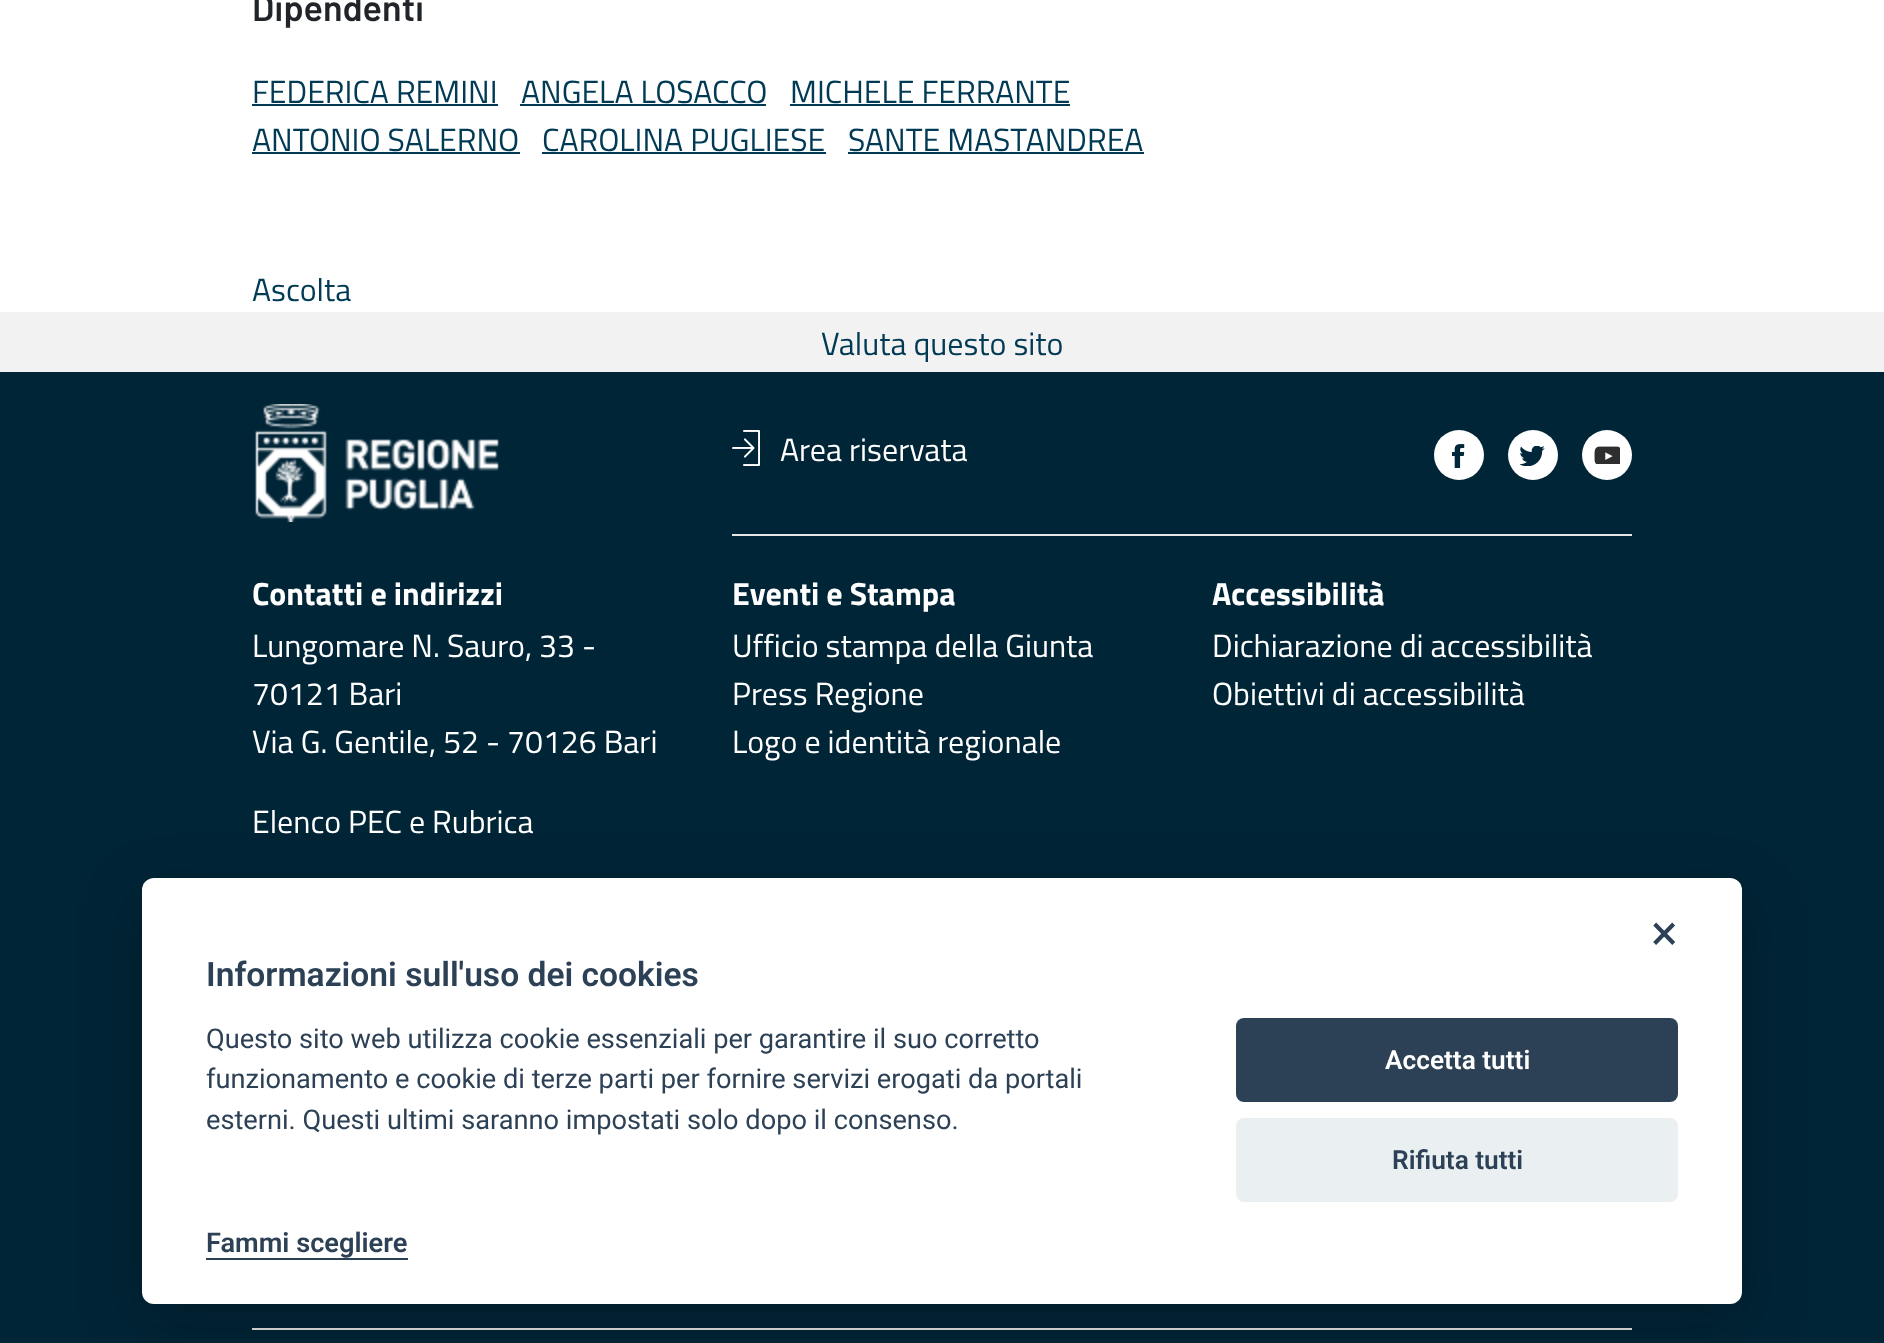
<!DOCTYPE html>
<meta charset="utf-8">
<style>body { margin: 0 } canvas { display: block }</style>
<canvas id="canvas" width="1884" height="1343"></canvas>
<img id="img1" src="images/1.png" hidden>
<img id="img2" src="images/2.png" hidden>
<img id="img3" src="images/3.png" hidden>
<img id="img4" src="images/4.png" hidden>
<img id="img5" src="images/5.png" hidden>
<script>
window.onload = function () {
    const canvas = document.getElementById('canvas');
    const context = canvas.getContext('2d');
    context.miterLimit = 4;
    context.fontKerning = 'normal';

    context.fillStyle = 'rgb(255, 255, 255)';
    context.fillRect(0, 0, 1884, 1343);
    context.fillStyle = 'rgb(0, 58, 84)';
    context.fillRect(252, 104, 246, 2);
    context.fillRect(520, 104, 246, 2);
    context.fillRect(790, 104, 280, 2);
    context.fillRect(252, 152, 268, 2);
    context.fillRect(542, 152, 284, 2);
    context.fillRect(848, 152, 296, 2);
    context.fillStyle = 'rgb(242, 242, 242)';
    context.fillRect(0, 312, 1884, 60);
    context.fillStyle = 'rgb(0, 37, 55)';
    context.fillRect(0, 372, 1884, 971);
    context.drawImage(document.getElementById('img1'), 255, 404, 244, 118);
    context.drawImage(document.getElementById('img2'), 732, 430, 28, 36);
    context.fillStyle = 'rgb(255, 255, 255)';
    context.beginPath();
    context.arc(1459, 455, 25, 0, 2 * Math.PI);
    context.fill();
    context.drawImage(document.getElementById('img3'), 1452, 444, 13, 24);
    context.beginPath();
    context.arc(1533, 455, 25, 0, 2 * Math.PI);
    context.fill();
    context.drawImage(document.getElementById('img4'), 1520, 446, 25, 20);
    context.beginPath();
    context.arc(1607, 455, 25, 0, 2 * Math.PI);
    context.fill();
    context.drawImage(document.getElementById('img5'), 1594, 446, 26, 18);
    context.fillStyle = 'rgb(230, 230, 230)';
    context.fillRect(732, 534, 900, 2);
    context.fillRect(252, 1328, 1380, 2);
    context.fillStyle = 'rgba(2, 2, 3, 0.28)';
    context.filter = 'blur(30px)';
    context.beginPath();
    context.roundRect(142, 898, 1600, 426, 12);
    context.fill();
    context.filter = 'none';
    context.fillStyle = 'rgb(255, 255, 255)';
    context.beginPath();
    context.roundRect(142, 878, 1600, 426, 12);
    context.fill();
    context.fillStyle = 'rgb(45, 65, 86)';
    context.fillRect(206, 1258, 202, 2);
    context.beginPath();
    context.roundRect(1236, 1018, 442, 84, 8);
    context.fill();
    context.fillStyle = 'rgb(234, 239, 242)';
    context.beginPath();
    context.roundRect(1236, 1118, 442, 84, 8);
    context.fill();
    context.font = '600 36px Barlow';
    context.fillStyle = 'rgb(33, 37, 41)';
    context.fillText('Dipendenti', 252, 21);
    context.font = '32px Titillium Web';
    context.fillStyle = 'rgb(0, 58, 84)';
    context.fillText('FEDERICA REMINI', 252, 103);
    context.fillText('ANGELA LOSACCO', 521, 103);
    context.fillText('MICHELE FERRANTE', 790, 103);
    context.fillText('ANTONIO SALERNO', 252, 151);
    context.fillText('CAROLINA PUGLIESE', 542, 151);
    context.fillText('SANTE MASTANDREA', 848, 151);
    context.fillText('Ascolta', 252, 301);
    context.fillText('Valuta questo sito', 821, 355);
    context.fillStyle = 'rgb(255, 255, 255)';
    context.fillText('Area riservata', 780, 461);
    context.font = 'bold 32px Titillium Web';
    context.fillText('Contatti e indirizzi', 252, 605);
    context.font = '32px Titillium Web';
    context.fillText('Lungomare N. Sauro, 33 -', 252, 657);
    context.fillText('70121 Bari', 252, 705);
    context.fillText('Via G. Gentile, 52 - 70126 Bari', 252, 753);
    context.fillText('Elenco PEC e Rubrica', 252, 833);
    context.font = 'bold 32px Titillium Web';
    context.fillText('Eventi e Stampa', 732, 605);
    context.font = '32px Titillium Web';
    context.fillText('Ufficio stampa della Giunta', 732, 657);
    context.fillText('Press Regione', 732, 705);
    context.fillText('Logo e identità regionale', 732, 753);
    context.font = 'bold 32px Titillium Web';
    context.fillText('Accessibilità', 1212, 605);
    context.font = '32px Titillium Web';
    context.fillText('Dichiarazione di accessibilità', 1212, 657);
    context.fillText('Obiettivi di accessibilità', 1212, 705);
    context.font = '50px Roboto';
    context.fillStyle = 'rgb(45, 65, 86)';
    context.fillText('×', 1651, 950);
    context.font = '600 33.6px Roboto';
    context.fillText('Informazioni sull\'uso dei cookies', 206, 986);
    context.font = '27.2px Roboto';
    context.fillText('Questo sito web utilizza cookie essenziali per garantire il suo corretto', 206, 1048);
    context.fillText('funzionamento e cookie di terze parti per fornire servizi erogati da portali', 206, 1088);
    context.fillText('esterni. Questi ultimi saranno impostati solo dopo il consenso.', 206, 1129);
    context.font = '600 27.2px Roboto';
    context.fillText('Fammi scegliere', 206, 1252);
    context.font = '600 26.25px Roboto';
    context.fillStyle = 'rgb(255, 255, 255)';
    context.fillText('Accetta tutti', 1385, 1069);
    context.fillStyle = 'rgb(45, 65, 86)';
    context.fillText('Rifiuta tutti', 1392, 1169);
};
</script>
